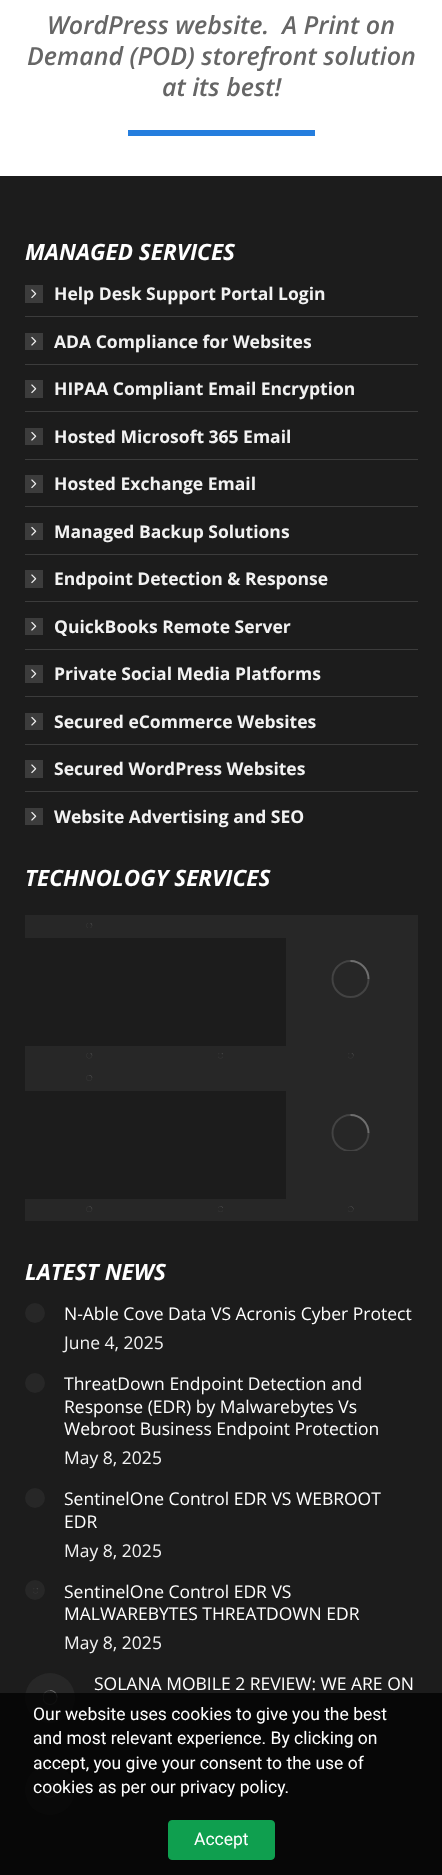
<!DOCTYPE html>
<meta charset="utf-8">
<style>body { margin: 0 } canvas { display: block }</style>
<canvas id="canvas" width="442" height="1875"></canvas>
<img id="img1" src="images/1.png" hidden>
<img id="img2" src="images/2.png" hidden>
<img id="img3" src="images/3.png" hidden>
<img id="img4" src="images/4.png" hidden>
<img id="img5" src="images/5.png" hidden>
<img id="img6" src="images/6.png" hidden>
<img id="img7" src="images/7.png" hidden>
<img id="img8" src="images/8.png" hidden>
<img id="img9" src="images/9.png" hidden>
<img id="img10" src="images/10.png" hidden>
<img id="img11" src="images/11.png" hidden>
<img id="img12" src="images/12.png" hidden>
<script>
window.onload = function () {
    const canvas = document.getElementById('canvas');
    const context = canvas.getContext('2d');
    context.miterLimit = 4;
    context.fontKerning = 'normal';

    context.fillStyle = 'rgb(255, 255, 255)';
    context.fillRect(0, 0, 442, 1875);
    context.fillStyle = 'rgb(37, 126, 222)';
    context.fillRect(128, 130, 187, 4);
    context.fillRect(311, 130, 4, 6);
    context.fillRect(128, 134, 187, 2);
    context.fillStyle = 'rgb(28, 28, 28)';
    context.fillRect(0, 176, 442, 1699);
    context.fillStyle = 'rgb(60, 60, 60)';
    context.fillRect(25, 285, 18, 18);
    context.drawImage(document.getElementById('img1'), 31, 289, 6, 10);
    context.fillRect(25, 316, 393, 1);
    context.fillRect(25, 333, 18, 17);
    context.drawImage(document.getElementById('img2'), 31, 336, 6, 10);
    context.fillRect(25, 364, 393, 1);
    context.fillRect(25, 380, 18, 18);
    context.drawImage(document.getElementById('img1'), 31, 384, 6, 10);
    context.fillRect(25, 411, 393, 1);
    context.fillRect(25, 428, 18, 17);
    context.drawImage(document.getElementById('img2'), 31, 431, 6, 10);
    context.fillRect(25, 459, 393, 1);
    context.fillRect(25, 475, 18, 18);
    context.drawImage(document.getElementById('img1'), 31, 479, 6, 10);
    context.fillRect(25, 506, 393, 1);
    context.fillRect(25, 523, 18, 17);
    context.drawImage(document.getElementById('img2'), 31, 526, 6, 10);
    context.fillRect(25, 554, 393, 1);
    context.fillRect(25, 570, 18, 18);
    context.drawImage(document.getElementById('img1'), 31, 574, 6, 10);
    context.fillRect(25, 601, 393, 1);
    context.fillRect(25, 618, 18, 17);
    context.drawImage(document.getElementById('img2'), 31, 621, 6, 10);
    context.fillRect(25, 649, 393, 1);
    context.fillRect(25, 665, 18, 18);
    context.drawImage(document.getElementById('img1'), 31, 669, 6, 10);
    context.fillRect(25, 696, 393, 1);
    context.fillRect(25, 713, 18, 17);
    context.drawImage(document.getElementById('img2'), 31, 716, 6, 10);
    context.fillRect(25, 744, 393, 1);
    context.fillRect(25, 760, 18, 18);
    context.drawImage(document.getElementById('img1'), 31, 764, 6, 10);
    context.fillRect(25, 791, 393, 1);
    context.fillRect(25, 808, 18, 17);
    context.drawImage(document.getElementById('img2'), 31, 811, 6, 10);
    context.fillStyle = 'rgb(39, 39, 39)';
    context.fillRect(25, 915, 261, 23);
    context.drawImage(document.getElementById('img3'), 86, 923, 7, 5);
    context.fillRect(286, 915, 132, 131);
    context.beginPath();
    context.arc(350.5, 979, 18, 0, 2 * Math.PI);
    context.strokeStyle = 'rgb(67, 67, 67)';
    context.lineWidth = 2;
    context.stroke();
    context.beginPath();
    context.moveTo(368.5, 979);
    context.bezierCurveTo(368.5, 969, 360.5, 961, 350.5, 961);
    context.strokeStyle = 'rgba(242, 242, 242, 0.25)';
    context.stroke();
    context.fillRect(25, 1046, 393, 23);
    context.drawImage(document.getElementById('img4'), 86, 1053, 7, 6);
    context.drawImage(document.getElementById('img5'), 218, 1053, 5, 6);
    context.drawImage(document.getElementById('img6'), 348, 1053, 6, 6);
    context.fillRect(25, 1069, 261, 22);
    context.drawImage(document.getElementById('img7'), 86, 1075, 7, 6);
    context.fillRect(286, 1069, 132, 130);
    context.save();
    context.beginPath();
    context.rect(331, 1114, 39, 37);
    context.clip();
    context.beginPath();
    context.arc(350.5, 1133, 18, 0, 2 * Math.PI);
    context.strokeStyle = 'rgb(67, 67, 67)';
    context.stroke();
    context.restore();
    context.beginPath();
    context.moveTo(368.5, 1133);
    context.bezierCurveTo(368.5, 1123, 360.5, 1115, 350.5, 1115);
    context.stroke();
    context.fillRect(25, 1199, 393, 22);
    context.drawImage(document.getElementById('img8'), 86, 1206, 7, 6);
    context.drawImage(document.getElementById('img9'), 218, 1206, 5, 6);
    context.drawImage(document.getElementById('img10'), 348, 1206, 6, 6);
    context.beginPath();
    context.arc(35, 1313, 10, 0, 2 * Math.PI);
    context.fill();
    context.beginPath();
    context.arc(35, 1383, 10, 0, 2 * Math.PI);
    context.fill();
    context.beginPath();
    context.arc(35, 1498, 10, 0, 2 * Math.PI);
    context.fill();
    context.beginPath();
    context.arc(35, 1590, 10, 0, 2 * Math.PI);
    context.fill();
    context.drawImage(document.getElementById('img5'), 33, 1588, 5, 6);
    context.beginPath();
    context.arc(50, 1698, 25, 0, 2 * Math.PI);
    context.fill();
    context.drawImage(document.getElementById('img11'), 43, 1690, 15, 15);
    context.beginPath();
    context.arc(50, 1790, 25, 0, 2 * Math.PI);
    context.fill();
    context.drawImage(document.getElementById('img12'), 43, 1783, 15, 15);
    context.fillStyle = 'rgba(0, 0, 0, 0.75)';
    context.fillRect(0, 1693, 442, 182);
    context.fillStyle = 'rgb(15, 159, 79)';
    context.beginPath();
    context.roundRect(168.5, 1820.5, 106, 39, 3.5);
    context.fill();
    context.strokeStyle = 'rgb(15, 159, 79)';
    context.lineWidth = 1;
    context.stroke();
    context.font = 'italic 600 25px Open Sans';
    context.fillStyle = 'rgb(102, 102, 102)';
    context.fillText('WordPress website.  A Print on', 47, 34);
    context.fillText('Demand (POD) storefront solution', 27, 65);
    context.fillText('at its best!', 162, 96);
    context.font = 'italic bold 22.5px Open Sans';
    context.fillStyle = 'rgb(255, 255, 255)';
    context.fillText('MANAGED SERVICES', 25, 260);
    context.font = 'bold 17.5px Open Sans';
    context.fillStyle = 'rgb(242, 242, 242)';
    context.fillText('Help Desk Support Portal Login', 54, 300);
    context.fillText('ADA Compliance for Websites', 54, 348);
    context.fillText('HIPAA Compliant Email Encryption', 54, 395);
    context.fillText('Hosted Microsoft 365 Email', 54, 443);
    context.fillText('Hosted Exchange Email', 54, 490);
    context.fillText('Managed Backup Solutions', 54, 538);
    context.fillText('Endpoint Detection & Response', 54, 585);
    context.fillText('QuickBooks Remote Server', 54, 633);
    context.fillText('Private Social Media Platforms', 54, 680);
    context.fillText('Secured eCommerce Websites', 54, 728);
    context.fillText('Secured WordPress Websites', 54, 775);
    context.fillText('Website Advertising and SEO', 54, 823);
    context.font = 'italic bold 22.5px Open Sans';
    context.fillStyle = 'rgb(255, 255, 255)';
    context.fillText('TECHNOLOGY SERVICES', 25, 886);
    context.fillText('LATEST NEWS', 25, 1280);
    context.font = '17.5px Open Sans';
    context.fillText('N-Able Cove Data VS Acronis Cyber Protect', 64, 1320);
    context.fillStyle = 'rgb(242, 242, 242)';
    context.fillText('June 4, 2025', 64, 1349);
    context.fillStyle = 'rgb(255, 255, 255)';
    context.fillText('ThreatDown Endpoint Detection and', 64, 1390);
    context.fillText('Response (EDR) by Malwarebytes Vs', 64, 1413);
    context.fillText('Webroot Business Endpoint Protection', 64, 1435);
    context.fillStyle = 'rgb(242, 242, 242)';
    context.fillText('May 8, 2025', 64, 1464);
    context.fillStyle = 'rgb(255, 255, 255)';
    context.fillText('SentinelOne Control EDR VS WEBROOT', 64, 1505);
    context.fillText('EDR', 64, 1528);
    context.fillStyle = 'rgb(242, 242, 242)';
    context.fillText('May 8, 2025', 64, 1557);
    context.fillStyle = 'rgb(255, 255, 255)';
    context.fillText('SentinelOne Control EDR VS', 64, 1598);
    context.fillText('MALWAREBYTES THREATDOWN EDR', 64, 1620);
    context.fillStyle = 'rgb(242, 242, 242)';
    context.fillText('May 8, 2025', 64, 1649);
    context.fillStyle = 'rgb(255, 255, 255)';
    context.fillText('SOLANA MOBILE 2 REVIEW: WE ARE ON', 94, 1690);
    context.font = '17.5px Roboto';
    context.fillText('Our website uses cookies to give you the best', 33, 1720);
    context.fillText('and most relevant experience. By clicking on', 33, 1744);
    context.fillText('accept, you give your consent to the use of', 33, 1769);
    context.fillText('cookies as per our privacy policy.', 33, 1793);
    context.fillText('Accept', 194, 1845);
};
</script>
